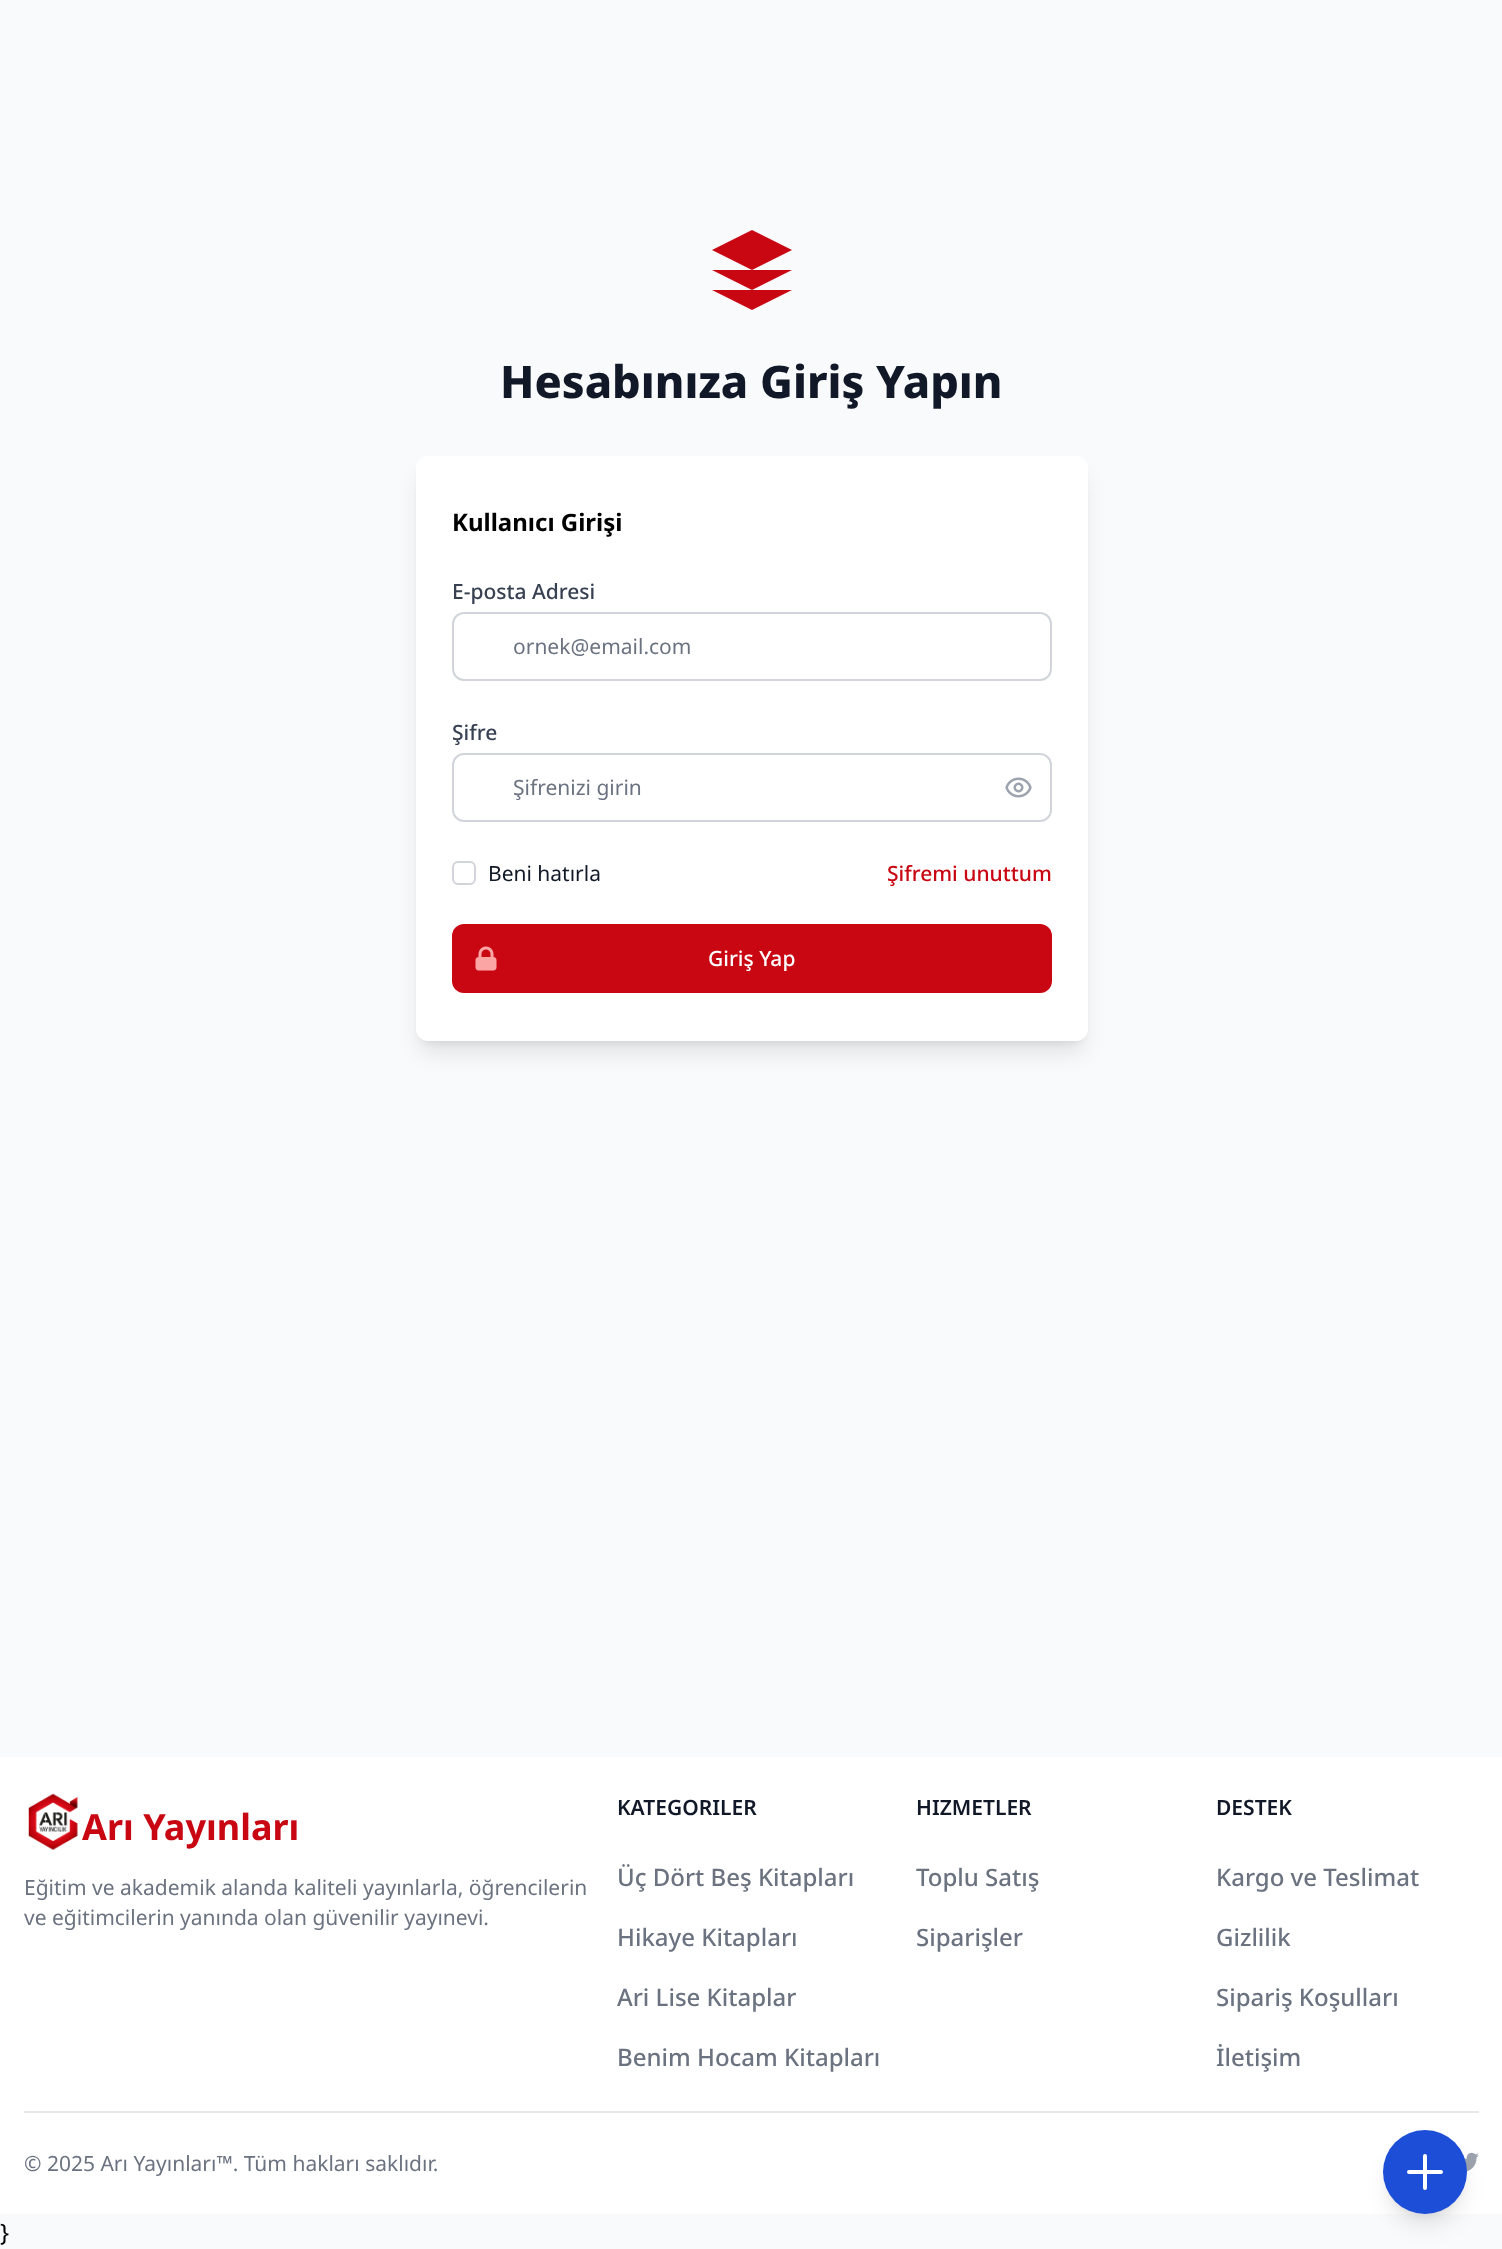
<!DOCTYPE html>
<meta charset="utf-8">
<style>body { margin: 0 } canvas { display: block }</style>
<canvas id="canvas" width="1502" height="2249"></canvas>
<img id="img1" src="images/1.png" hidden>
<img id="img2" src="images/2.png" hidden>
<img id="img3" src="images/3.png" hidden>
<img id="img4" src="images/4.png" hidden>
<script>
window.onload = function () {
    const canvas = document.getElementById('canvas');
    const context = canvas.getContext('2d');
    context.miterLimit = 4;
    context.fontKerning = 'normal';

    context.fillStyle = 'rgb(249, 250, 251)';
    context.fillRect(0, 0, 1502, 2249);
    context.fillStyle = 'rgb(201, 7, 18)';
    context.beginPath();
    context.moveTo(752, 230);
    context.lineTo(712, 250);
    context.lineTo(752, 270);
    context.lineTo(792, 250);
    context.closePath();
    context.moveTo(712, 290);
    context.lineTo(752, 310);
    context.lineTo(792, 290);
    context.moveTo(712, 270);
    context.lineTo(752, 290);
    context.lineTo(792, 270);
    context.fill();
    context.fillStyle = 'rgba(0, 0, 0, 0.1)';
    context.filter = 'blur(4.5px)';
    context.beginPath();
    context.roundRect(422, 468, 660, 573, 6);
    context.fill();
    context.filter = 'none';
    context.filter = 'blur(11px)';
    context.beginPath();
    context.roundRect(420, 476, 663, 576, 8);
    context.fill();
    context.filter = 'none';
    context.fillStyle = 'rgb(255, 255, 255)';
    context.beginPath();
    context.roundRect(416, 456, 672, 585, 12);
    context.fill();
    context.beginPath();
    context.roundRect(453, 613, 598, 67, 11);
    context.strokeStyle = 'rgb(209, 213, 219)';
    context.lineWidth = 2;
    context.stroke();
    context.beginPath();
    context.roundRect(453, 754, 598, 67, 11);
    context.stroke();
    context.drawImage(document.getElementById('img1'), 1005, 777, 27, 21);
    context.beginPath();
    context.roundRect(453, 862, 22, 22, 5);
    context.stroke();
    context.fillStyle = 'rgb(201, 7, 18)';
    context.beginPath();
    context.roundRect(452, 924, 600, 69, 12);
    context.fill();
    context.drawImage(document.getElementById('img2'), 475, 946, 22, 25);
    context.fillStyle = 'rgb(255, 255, 255)';
    context.fillRect(0, 1757, 1502, 457);
    context.drawImage(document.getElementById('img3'), 28, 1793, 50, 58);
    context.fillStyle = 'rgb(229, 231, 235)';
    context.fillRect(24, 2111, 1455, 2);
    context.drawImage(document.getElementById('img4'), 1464, 2152, 15, 20);
    context.fillStyle = 'rgba(0, 0, 0, 0.1)';
    context.filter = 'blur(4.5px)';
    context.beginPath();
    context.roundRect(1389, 2142, 72, 72, 36);
    context.fill();
    context.filter = 'none';
    context.filter = 'blur(11px)';
    context.beginPath();
    context.roundRect(1388, 2150, 75, 75, 37.5);
    context.fill();
    context.filter = 'none';
    context.fillStyle = 'rgb(29, 78, 216)';
    context.beginPath();
    context.arc(1425, 2172, 42, 0, 2 * Math.PI);
    context.fill();
    context.beginPath();
    context.moveTo(1425, 2156);
    context.lineTo(1425, 2188);
    context.moveTo(1409, 2172);
    context.lineTo(1441, 2172);
    context.strokeStyle = 'rgb(255, 255, 255)';
    context.lineWidth = 4;
    context.lineCap = 'round';
    context.lineJoin = 'round';
    context.stroke();
    context.font = '800 45px Noto Sans';
    context.fillStyle = 'rgb(17, 24, 39)';
    context.fillText('Hesabınıza Giriş Yapın', 500, 398);
    context.font = 'bold 24px Noto Sans';
    context.fillStyle = 'rgb(0, 0, 0)';
    context.fillText('Kullanıcı Girişi', 452, 531);
    context.font = '500 21px Noto Sans';
    context.fillStyle = 'rgb(55, 65, 81)';
    context.fillText('E-posta Adresi', 452, 599);
    context.font = '21px Noto Sans';
    context.fillStyle = 'rgb(107, 114, 128)';
    context.fillText('ornek@email.com', 513, 654);
    context.font = '500 21px Noto Sans';
    context.fillStyle = 'rgb(55, 65, 81)';
    context.fillText('Şifre', 452, 740);
    context.font = '21px Noto Sans';
    context.fillStyle = 'rgb(107, 114, 128)';
    context.fillText('Şifrenizi girin', 513, 795);
    context.fillStyle = 'rgb(17, 24, 39)';
    context.fillText('Beni hatırla', 488, 881);
    context.font = '500 21px Noto Sans';
    context.fillStyle = 'rgb(201, 7, 18)';
    context.fillText('Şifremi unuttum', 887, 881);
    context.fillStyle = 'rgb(255, 255, 255)';
    context.fillText('Giriş Yap', 708, 966);
    context.font = '24px Noto Sans';
    context.fillStyle = 'rgb(0, 0, 0)';
    context.fillText('}', 0, 2241);
    context.font = 'bold 36px Noto Sans';
    context.fillStyle = 'rgb(201, 7, 18)';
    context.fillText('Arı Yayınları', 82, 1840);
    context.font = '21px Noto Sans';
    context.fillStyle = 'rgb(107, 114, 128)';
    context.fillText('Eğitim ve akademik alanda kaliteli yayınlarla, öğrencilerin', 24, 1895);
    context.fillText('ve eğitimcilerin yanında olan güvenilir yayınevi.', 24, 1925);
    context.font = '600 21px Noto Sans';
    context.fillStyle = 'rgb(17, 24, 39)';
    context.fillText('KATEGORILER', 617, 1815);
    context.font = '500 24px Noto Sans';
    context.fillStyle = 'rgb(107, 114, 128)';
    context.fillText('Üç Dört Beş Kitapları', 617, 1886);
    context.fillText('Hikaye Kitapları', 617, 1946);
    context.fillText('Ari Lise Kitaplar', 617, 2006);
    context.fillText('Benim Hocam Kitapları', 617, 2066);
    context.font = '600 21px Noto Sans';
    context.fillStyle = 'rgb(17, 24, 39)';
    context.fillText('HIZMETLER', 916, 1815);
    context.font = '500 24px Noto Sans';
    context.fillStyle = 'rgb(107, 114, 128)';
    context.fillText('Toplu Satış', 916, 1886);
    context.fillText('Siparişler', 916, 1946);
    context.font = '600 21px Noto Sans';
    context.fillStyle = 'rgb(17, 24, 39)';
    context.fillText('DESTEK', 1216, 1815);
    context.font = '500 24px Noto Sans';
    context.fillStyle = 'rgb(107, 114, 128)';
    context.fillText('Kargo ve Teslimat', 1216, 1886);
    context.fillText('Gizlilik', 1216, 1946);
    context.fillText('Sipariş Koşulları', 1216, 2006);
    context.fillText('İletişim', 1216, 2066);
    context.font = '21px Noto Sans';
    context.fillText('© 2025 Arı Yayınları™. Tüm hakları saklıdır.', 24, 2171);
};
</script>
